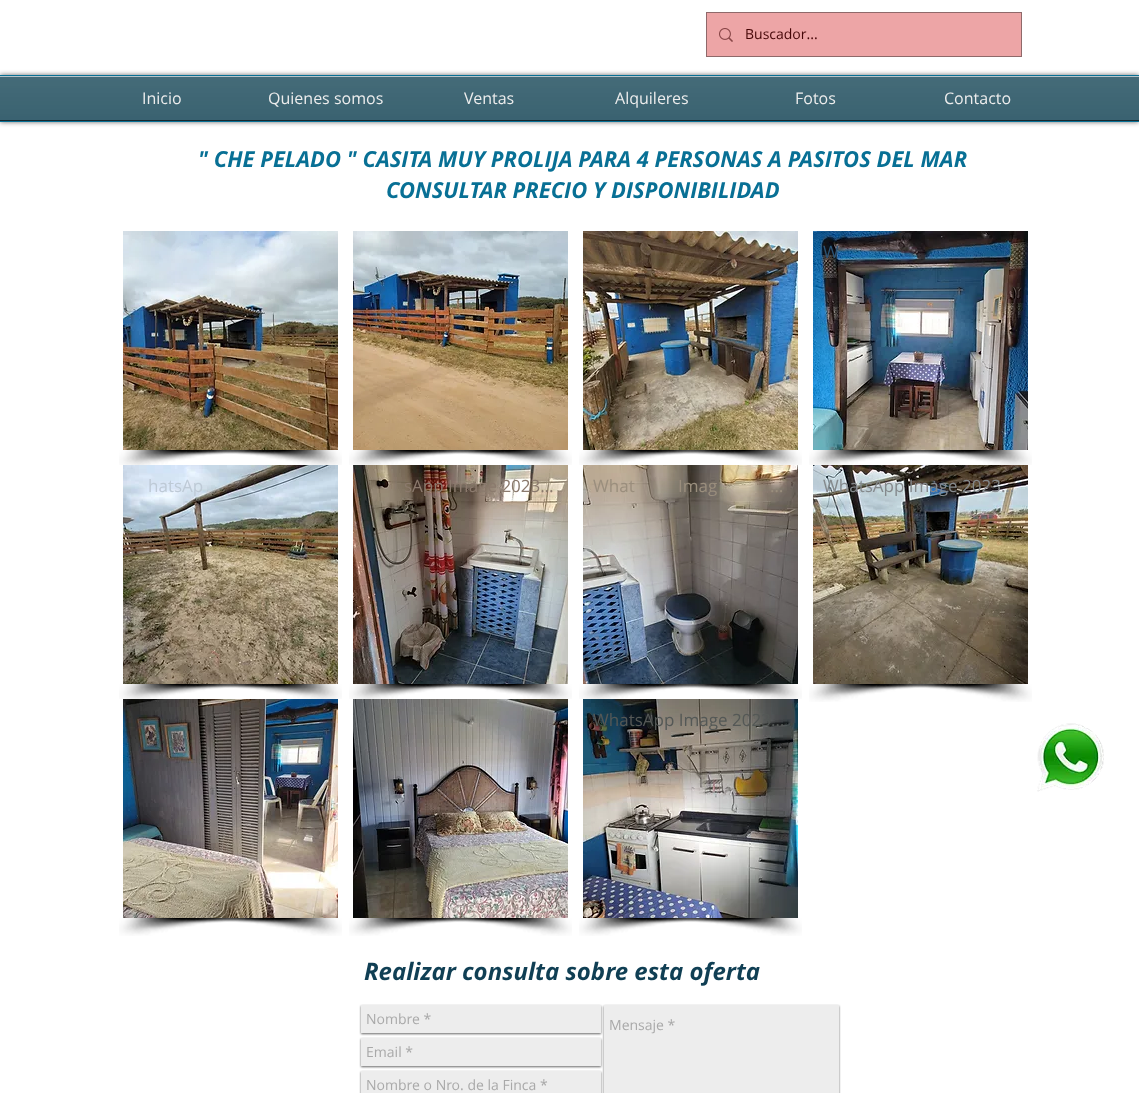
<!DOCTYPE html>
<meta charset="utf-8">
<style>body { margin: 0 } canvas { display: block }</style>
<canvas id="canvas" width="1139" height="1093"></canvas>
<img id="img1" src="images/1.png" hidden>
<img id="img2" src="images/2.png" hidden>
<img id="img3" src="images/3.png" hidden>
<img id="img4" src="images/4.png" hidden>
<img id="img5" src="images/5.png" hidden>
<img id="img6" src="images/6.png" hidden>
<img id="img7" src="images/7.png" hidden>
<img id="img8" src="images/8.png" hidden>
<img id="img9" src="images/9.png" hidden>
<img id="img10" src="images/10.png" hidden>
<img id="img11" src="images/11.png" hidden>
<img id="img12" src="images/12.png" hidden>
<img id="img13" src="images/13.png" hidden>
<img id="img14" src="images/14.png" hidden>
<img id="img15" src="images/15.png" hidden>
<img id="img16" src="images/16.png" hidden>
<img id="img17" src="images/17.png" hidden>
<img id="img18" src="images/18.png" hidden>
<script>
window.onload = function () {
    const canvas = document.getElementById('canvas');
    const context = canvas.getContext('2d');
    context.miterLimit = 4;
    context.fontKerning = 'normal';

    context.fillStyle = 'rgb(255, 255, 255)';
    context.fillRect(0, 0, 1139, 1093);
    context.strokeStyle = 'rgb(143, 105, 106)';
    context.strokeRect(706.5, 12.5, 315, 44);
    context.fillStyle = 'rgb(237, 165, 166)';
    context.fillRect(707, 13, 314, 43);
    context.drawImage(document.getElementById('img1'), 719, 28, 14, 14);
    context.fillStyle = 'rgba(0, 0, 0, 0.6)';
    context.filter = 'blur(2.5px)';
    context.beginPath();
    context.rect(0, 75, 1139, 47);
    context.fill();
    context.filter = 'none';
    context.fillStyle = 'rgb(4, 56, 74)';
    context.fillRect(0, 77, 1139, 43);
    context.drawImage(document.getElementById('img2'), 0, 77, 1139, 43);
    context.fillStyle = 'rgb(23, 39, 45)';
    context.fillRect(0, 120, 1139, 1);
    context.fillStyle = 'rgb(181, 196, 201)';
    context.fillRect(0, 76, 1139, 1);
    context.fillStyle = 'rgb(8, 112, 149)';
    context.fillRect(0, 75, 1139, 1);
    context.fillRect(0, 121, 1139, 1);
    context.drawImage(document.getElementById('img3'), 123, 231, 215, 219);
    context.drawImage(document.getElementById('img4'), 119, 450, 152, 15);
    context.drawImage(document.getElementById('img5'), 209, 450, 133, 15);
    context.drawImage(document.getElementById('img6'), 353, 231, 215, 219);
    context.drawImage(document.getElementById('img4'), 349, 450, 152, 15);
    context.drawImage(document.getElementById('img5'), 439, 450, 133, 15);
    context.drawImage(document.getElementById('img7'), 583, 231, 215, 219);
    context.drawImage(document.getElementById('img4'), 579, 450, 152, 15);
    context.drawImage(document.getElementById('img5'), 669, 450, 133, 15);
    context.drawImage(document.getElementById('img8'), 813, 231, 215, 219);
    context.drawImage(document.getElementById('img4'), 809, 450, 152, 15);
    context.drawImage(document.getElementById('img5'), 899, 450, 133, 15);
    context.drawImage(document.getElementById('img9'), 123, 465, 215, 219);
    context.drawImage(document.getElementById('img4'), 119, 684, 152, 15);
    context.drawImage(document.getElementById('img5'), 209, 684, 133, 15);
    context.drawImage(document.getElementById('img10'), 353, 465, 215, 219);
    context.drawImage(document.getElementById('img4'), 349, 684, 152, 15);
    context.drawImage(document.getElementById('img5'), 439, 684, 133, 15);
    context.drawImage(document.getElementById('img11'), 583, 465, 215, 219);
    context.drawImage(document.getElementById('img4'), 579, 684, 152, 15);
    context.drawImage(document.getElementById('img5'), 669, 684, 133, 15);
    context.drawImage(document.getElementById('img12'), 813, 465, 215, 219);
    context.drawImage(document.getElementById('img13'), 809, 684, 152, 18);
    context.drawImage(document.getElementById('img14'), 899, 684, 133, 18);
    context.drawImage(document.getElementById('img15'), 123, 699, 215, 219);
    context.drawImage(document.getElementById('img13'), 119, 918, 152, 18);
    context.drawImage(document.getElementById('img14'), 209, 918, 133, 18);
    context.drawImage(document.getElementById('img16'), 353, 699, 215, 219);
    context.drawImage(document.getElementById('img13'), 349, 918, 152, 18);
    context.drawImage(document.getElementById('img14'), 439, 918, 133, 18);
    context.drawImage(document.getElementById('img17'), 583, 699, 215, 219);
    context.drawImage(document.getElementById('img13'), 579, 918, 152, 18);
    context.drawImage(document.getElementById('img14'), 669, 918, 133, 18);
    context.fillStyle = 'rgba(0, 0, 0, 0.6)';
    context.filter = 'blur(1px)';
    context.beginPath();
    context.rect(361, 1006, 240, 28);
    context.fill();
    context.filter = 'none';
    context.fillStyle = 'rgb(237, 237, 237)';
    context.fillRect(361, 1005, 240, 28);
    context.fillStyle = 'rgba(0, 0, 0, 0.6)';
    context.filter = 'blur(1px)';
    context.beginPath();
    context.rect(361, 1039, 240, 28);
    context.fill();
    context.filter = 'none';
    context.fillStyle = 'rgb(237, 237, 237)';
    context.fillRect(361, 1038, 240, 28);
    context.fillStyle = 'rgba(0, 0, 0, 0.6)';
    context.filter = 'blur(1px)';
    context.beginPath();
    context.rect(361, 1072, 240, 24);
    context.fill();
    context.filter = 'none';
    context.fillStyle = 'rgb(237, 237, 237)';
    context.fillRect(361, 1071, 240, 22);
    context.fillStyle = 'rgba(0, 0, 0, 0.6)';
    context.filter = 'blur(1px)';
    context.beginPath();
    context.rect(604, 1006, 235, 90);
    context.fill();
    context.filter = 'none';
    context.fillStyle = 'rgb(237, 237, 237)';
    context.fillRect(604, 1005, 235, 88);
    context.drawImage(document.getElementById('img18'), 1037, 723, 67, 69);
    context.font = '14px Open Sans';
    context.fillStyle = 'rgb(68, 5, 6)';
    context.fillText('Buscador...', 745, 39);
    context.font = '16px Open Sans';
    context.fillStyle = 'rgb(237, 237, 237)';
    context.fillText('Inicio', 142, 104);
    context.fillText('Quienes somos', 268, 104);
    context.fillText('Ventas', 464, 104);
    context.fillText('Alquileres', 615, 104);
    context.fillText('Fotos', 795, 104);
    context.fillText('Contacto', 944, 104);
    context.font = 'italic bold 22px Open Sans';
    context.fillStyle = 'rgb(8, 112, 149)';
    context.fillText('" CHE PELADO " CASITA MUY PROLIJA PARA 4 PERSONAS A PASITOS DEL MAR', 198, 167);
    context.fillText('CONSULTAR PRECIO Y DISPONIBILIDAD', 386, 198);
    context.font = '17px Open Sans';
    context.fillStyle = 'rgb(44, 84, 117)';
    context.fillText('W', 823, 258);
    context.fillStyle = 'rgb(190, 202, 214)';
    context.fillText('hatsAp', 148, 492);
    context.fillStyle = 'rgb(139, 122, 109)';
    context.fillText('sApp Image 2023…', 404, 492);
    context.fillStyle = 'rgb(154, 142, 125)';
    context.fillText('What', 593, 492);
    context.fillText('Imag', 678, 492);
    context.fillText('…', 770, 492);
    context.fillStyle = 'rgb(132, 137, 140)';
    context.fillText('WhatsApp Image 2023…', 823, 492);
    context.fillStyle = 'rgb(84, 88, 86)';
    context.fillText('WhatsApp Image 2023…', 593, 726);
    context.font = 'italic bold 24px Open Sans';
    context.fillStyle = 'rgb(16, 63, 84)';
    context.fillText('Realizar consulta sobre esta oferta', 364, 980);
    context.font = '14px Open Sans';
    context.fillStyle = 'rgb(169, 169, 169)';
    context.fillText('Nombre *', 366, 1024);
    context.fillText('Mensaje *', 609, 1030);
    context.fillText('Email *', 366, 1057);
    context.fillText('Nombre o Nro. de la Finca *', 366, 1090);
};
</script>
